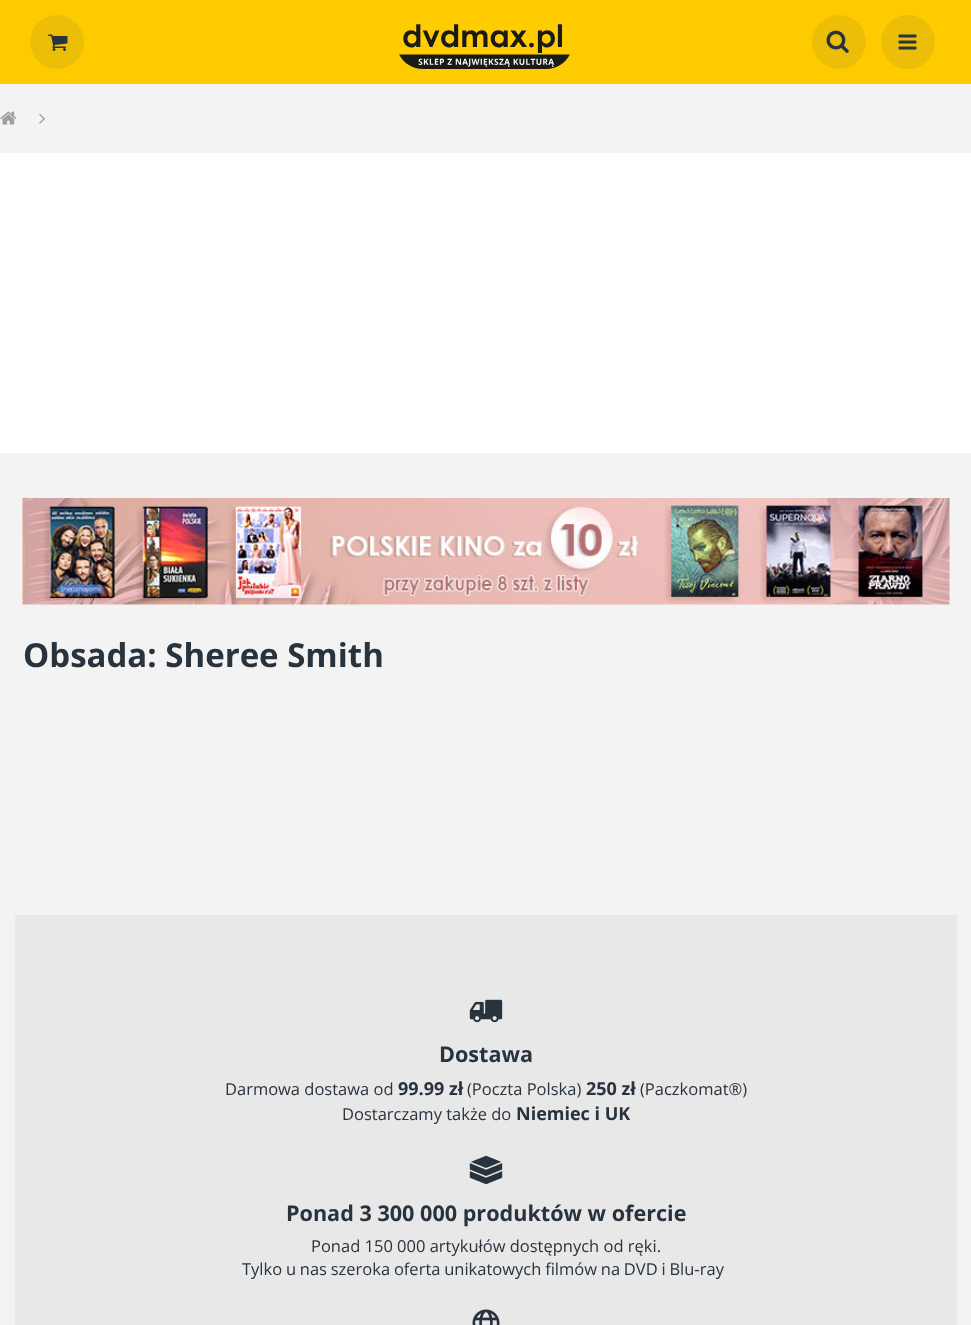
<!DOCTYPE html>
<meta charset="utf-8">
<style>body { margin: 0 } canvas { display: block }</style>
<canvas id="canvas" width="971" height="1325"></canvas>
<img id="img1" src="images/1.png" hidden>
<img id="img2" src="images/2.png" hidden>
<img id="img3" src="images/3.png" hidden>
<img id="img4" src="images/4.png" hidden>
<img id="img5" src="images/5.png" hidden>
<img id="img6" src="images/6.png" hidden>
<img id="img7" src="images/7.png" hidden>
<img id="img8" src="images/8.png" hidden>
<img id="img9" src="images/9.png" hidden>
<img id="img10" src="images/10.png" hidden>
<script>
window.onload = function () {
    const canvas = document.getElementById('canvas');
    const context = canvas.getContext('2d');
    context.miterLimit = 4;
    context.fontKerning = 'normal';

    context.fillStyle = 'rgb(243, 243, 243)';
    context.fillRect(0, 0, 971, 1325);
    context.fillStyle = 'rgb(254, 203, 0)';
    context.fillRect(0, 0, 971, 84);
    context.fillStyle = 'rgb(236, 190, 8)';
    context.beginPath();
    context.arc(57, 42, 27, 0, 2 * Math.PI);
    context.fill();
    context.drawImage(document.getElementById('img1'), 48, 34, 20, 17);
    context.drawImage(document.getElementById('img2'), 399, 24, 171, 45);
    context.beginPath();
    context.arc(839, 42, 27, 0, 2 * Math.PI);
    context.fill();
    context.drawImage(document.getElementById('img3'), 826, 30, 23, 23);
    context.beginPath();
    context.arc(908, 42, 27, 0, 2 * Math.PI);
    context.fill();
    context.drawImage(document.getElementById('img4'), 898, 34, 19, 16);
    context.drawImage(document.getElementById('img5'), 0, 111, 17, 14);
    context.drawImage(document.getElementById('img6'), 39, 113, 6, 11);
    context.fillStyle = 'rgb(255, 255, 255)';
    context.fillRect(0, 153, 971, 300);
    context.drawImage(document.getElementById('img7'), 22, 498, 928, 107);
    context.fillStyle = 'rgb(232, 232, 232)';
    context.fillRect(15, 915, 942, 410);
    context.drawImage(document.getElementById('img8'), 469, 999, 34, 24);
    context.drawImage(document.getElementById('img9'), 469, 1155, 34, 30);
    context.drawImage(document.getElementById('img10'), 472, 1309, 28, 16);
    context.font = 'bold 33px Open Sans';
    context.fillStyle = 'rgb(41, 51, 62)';
    context.fillText('Obsada: Sheree Smith', 23, 667);
    context.font = 'bold 21.6px Open Sans';
    context.fillText('Dostawa', 439, 1062);
    context.font = '16.5px Open Sans';
    context.fillText('Darmowa dostawa od', 225, 1095);
    context.font = 'bold 18px Open Sans';
    context.fillText('99.99 zł', 398, 1095);
    context.font = '16.5px Open Sans';
    context.fillText('(Poczta Polska)', 467, 1095);
    context.font = 'bold 18px Open Sans';
    context.fillText('250 zł', 586, 1095);
    context.font = '16.5px Open Sans';
    context.fillText('(Paczkomat®)', 640, 1095);
    context.fillText('Dostarczamy także do', 342, 1120);
    context.font = 'bold 18px Open Sans';
    context.fillText('Niemiec i UK', 516, 1120);
    context.font = 'bold 21.6px Open Sans';
    context.fillText('Ponad 3 300 000 produktów w ofercie', 286, 1221);
    context.font = '16.5px Open Sans';
    context.fillText('Ponad 150 000 artykułów dostępnych od ręki.', 311, 1252);
    context.wordSpacing = '-0.5px';
    context.fillText('Tylko u nas szeroka oferta unikatowych filmów na DVD i Blu‑ray', 242, 1275);
};
</script>
